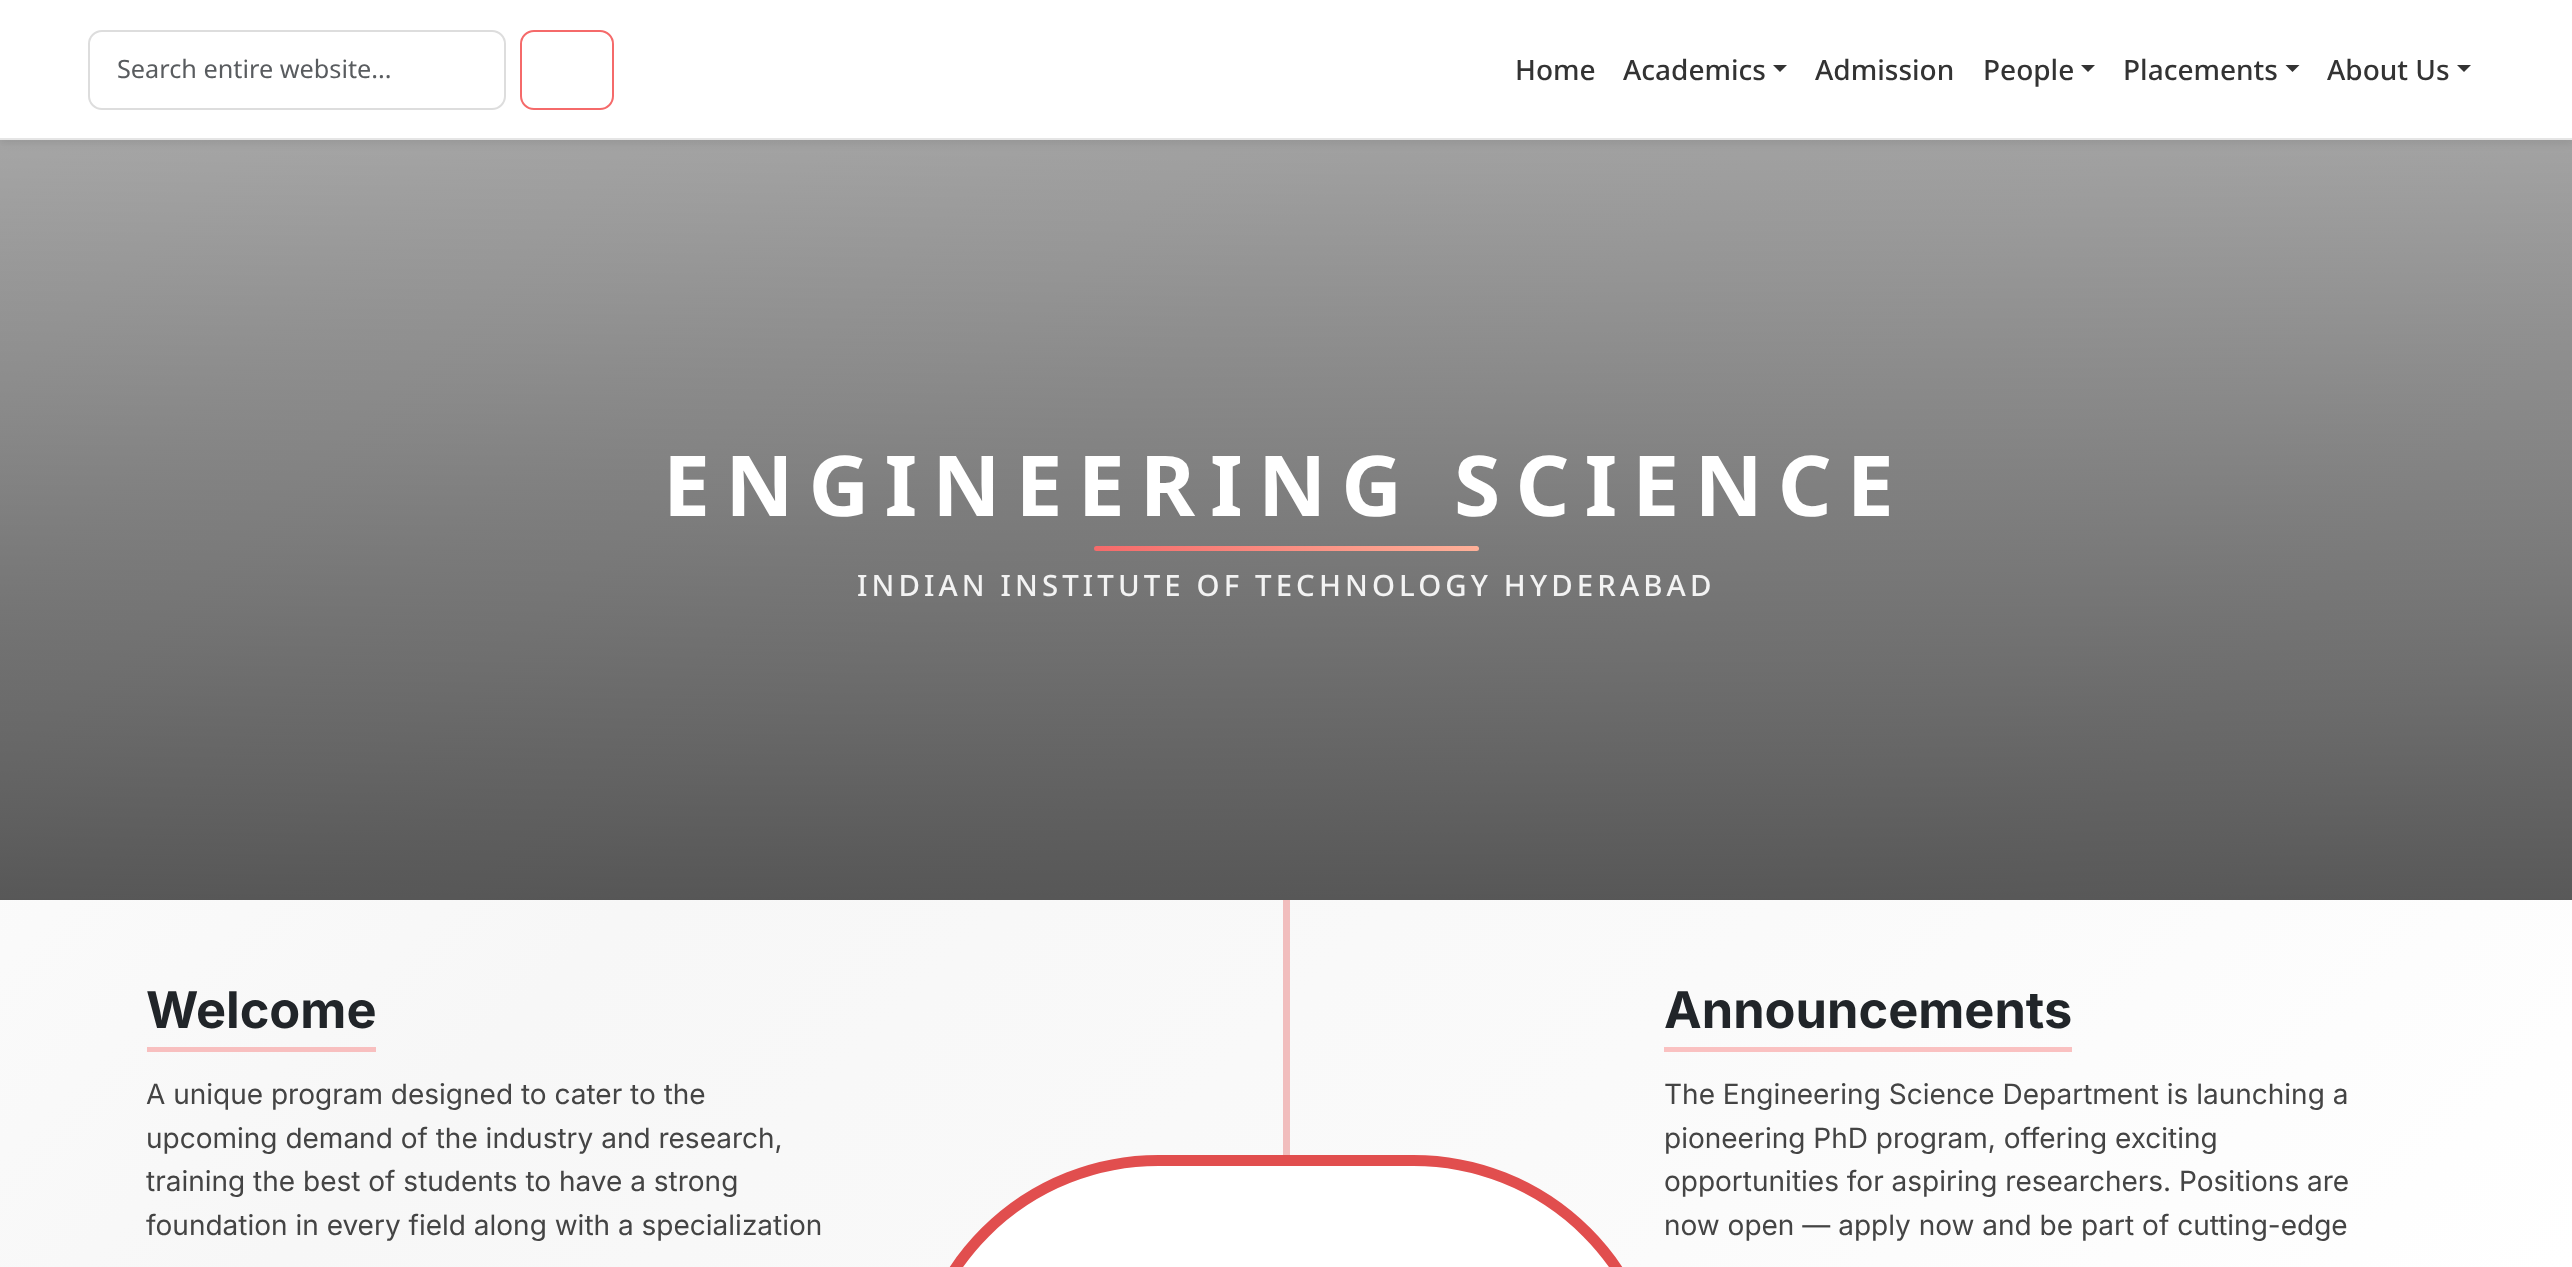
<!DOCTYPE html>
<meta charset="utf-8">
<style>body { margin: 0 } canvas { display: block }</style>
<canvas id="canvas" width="2572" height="1267"></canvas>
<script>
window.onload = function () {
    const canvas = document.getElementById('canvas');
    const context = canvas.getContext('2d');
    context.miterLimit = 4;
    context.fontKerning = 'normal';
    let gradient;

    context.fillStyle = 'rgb(255, 255, 255)';
    context.fillRect(0, 0, 2572, 1267);
    gradient = context.createLinearGradient(326, -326, 2246, 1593);
    gradient.addColorStop(0, 'rgb(255, 255, 255)');
    gradient.addColorStop(0.4, 'rgb(247, 247, 247)');
    gradient.addColorStop(0.7, 'rgb(250, 250, 250)');
    gradient.addColorStop(1, 'rgb(255, 255, 255)');
    context.fillStyle = gradient;
    context.fillRect(0, 140, 2572, 1127);
    gradient = context.createLinearGradient(1286, 140, 1286, 900);
    gradient.addColorStop(0, 'rgba(0, 0, 0, 0.35)');
    gradient.addColorStop(1, 'rgba(0, 0, 0, 0.65)');
    context.fillStyle = gradient;
    context.fillRect(0, 140, 2572, 760);
    context.fillStyle = 'rgba(0, 0, 0, 0.07)';
    context.filter = 'blur(3.5px)';
    context.beginPath();
    context.rect(0, 4, 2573, 140);
    context.fill();
    context.filter = 'none';
    context.fillStyle = 'rgb(255, 255, 255)';
    context.fillRect(0, 0, 2572, 138);
    context.fillStyle = 'rgb(229, 229, 229)';
    context.fillRect(0, 138, 2572, 2);
    context.beginPath();
    context.roundRect(89, 31, 416, 78, 13);
    context.strokeStyle = 'rgb(221, 221, 221)';
    context.lineWidth = 2;
    context.stroke();
    context.beginPath();
    context.roundRect(521, 31, 92, 78, 13);
    context.strokeStyle = 'rgb(245, 106, 106)';
    context.stroke();
    context.fillStyle = 'rgb(51, 51, 51)';
    context.beginPath();
    context.moveTo(1773, 65);
    context.lineTo(1787, 65);
    context.lineTo(1780, 72);
    context.closePath();
    context.fill();
    context.beginPath();
    context.moveTo(2081, 65);
    context.lineTo(2095, 65);
    context.lineTo(2088, 72);
    context.closePath();
    context.fill();
    context.beginPath();
    context.moveTo(2285.5, 65);
    context.lineTo(2299.5, 65);
    context.lineTo(2292.5, 72);
    context.closePath();
    context.fill();
    context.beginPath();
    context.moveTo(2457, 65);
    context.lineTo(2471, 65);
    context.lineTo(2464, 72);
    context.closePath();
    context.fill();
    gradient = context.createLinearGradient(1094, 549, 1479, 549);
    gradient.addColorStop(0, 'rgb(245, 106, 106)');
    gradient.addColorStop(1, 'rgb(255, 177, 153)');
    context.fillStyle = gradient;
    context.beginPath();
    context.roundRect(1094, 546, 385, 5, 2.5);
    context.fill();
    context.fillStyle = 'rgb(248, 191, 191)';
    context.fillRect(147, 1047, 229, 5);
    context.fillStyle = 'rgb(241, 189, 189)';
    context.fillRect(1283, 900, 7, 256);
    context.fillStyle = 'rgb(250, 193, 193)';
    context.fillRect(1664, 1047, 408, 5);
    context.fillStyle = 'rgb(255, 255, 255)';
    context.beginPath();
    context.roundRect(913.5, 1160.5, 745, 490, 372.5);
    context.fill();
    context.strokeStyle = 'rgb(225, 78, 78)';
    context.lineWidth = 11;
    context.stroke();
    context.font = '25.25px Noto Sans';
    context.fillStyle = 'rgb(89, 92, 95)';
    context.fillText('Search entire website...', 117, 78);
    context.font = '500 28px Noto Sans';
    context.fillStyle = 'rgb(51, 51, 51)';
    context.fillText('Home', 1515, 80);
    context.fillText('Academics', 1623, 80);
    context.fillText('Admission', 1815, 80);
    context.fillText('People', 1983, 80);
    context.fillText('Placements', 2123, 80);
    context.fillText('About Us', 2327, 80);
    context.letterSpacing = '15.1px';
    context.font = 'bold 84px Noto Sans';
    context.fillStyle = 'rgb(255, 255, 255)';
    context.fillText('ENGINEERING SCIENCE', 663, 516);
    context.letterSpacing = '4.1px';
    context.font = '500 29.4px Noto Sans';
    context.fillStyle = 'rgb(243, 243, 243)';
    context.fillText('INDIAN INSTITUTE OF TECHNOLOGY HYDERABAD', 857, 596);
    context.letterSpacing = '0px';
    context.font = 'bold 50.5px Inter';
    context.fillStyle = 'rgb(33, 37, 41)';
    context.fillText('Welcome', 146, 1028);
    context.font = '28px Inter';
    context.fillStyle = 'rgb(68, 68, 68)';
    context.fillText('A unique program designed to cater to the', 146, 1104);
    context.fillText('upcoming demand of the industry and research,', 146, 1148);
    context.fillText('training the best of students to have a strong', 146, 1191);
    context.fillText('foundation in every field along with a specialization', 146, 1235);
    context.font = 'bold 50.5px Inter';
    context.fillStyle = 'rgb(33, 37, 41)';
    context.fillText('Announcements', 1664, 1028);
    context.font = '28px Inter';
    context.fillStyle = 'rgb(68, 68, 68)';
    context.fillText('The Engineering Science Department is launching a', 1664, 1104);
    context.fillText('pioneering PhD program, offering exciting', 1664, 1148);
    context.fillText('opportunities for aspiring researchers. Positions are', 1664, 1191);
    context.fillText('now open — apply now and be part of cutting-edge', 1664, 1235);
};
</script>
